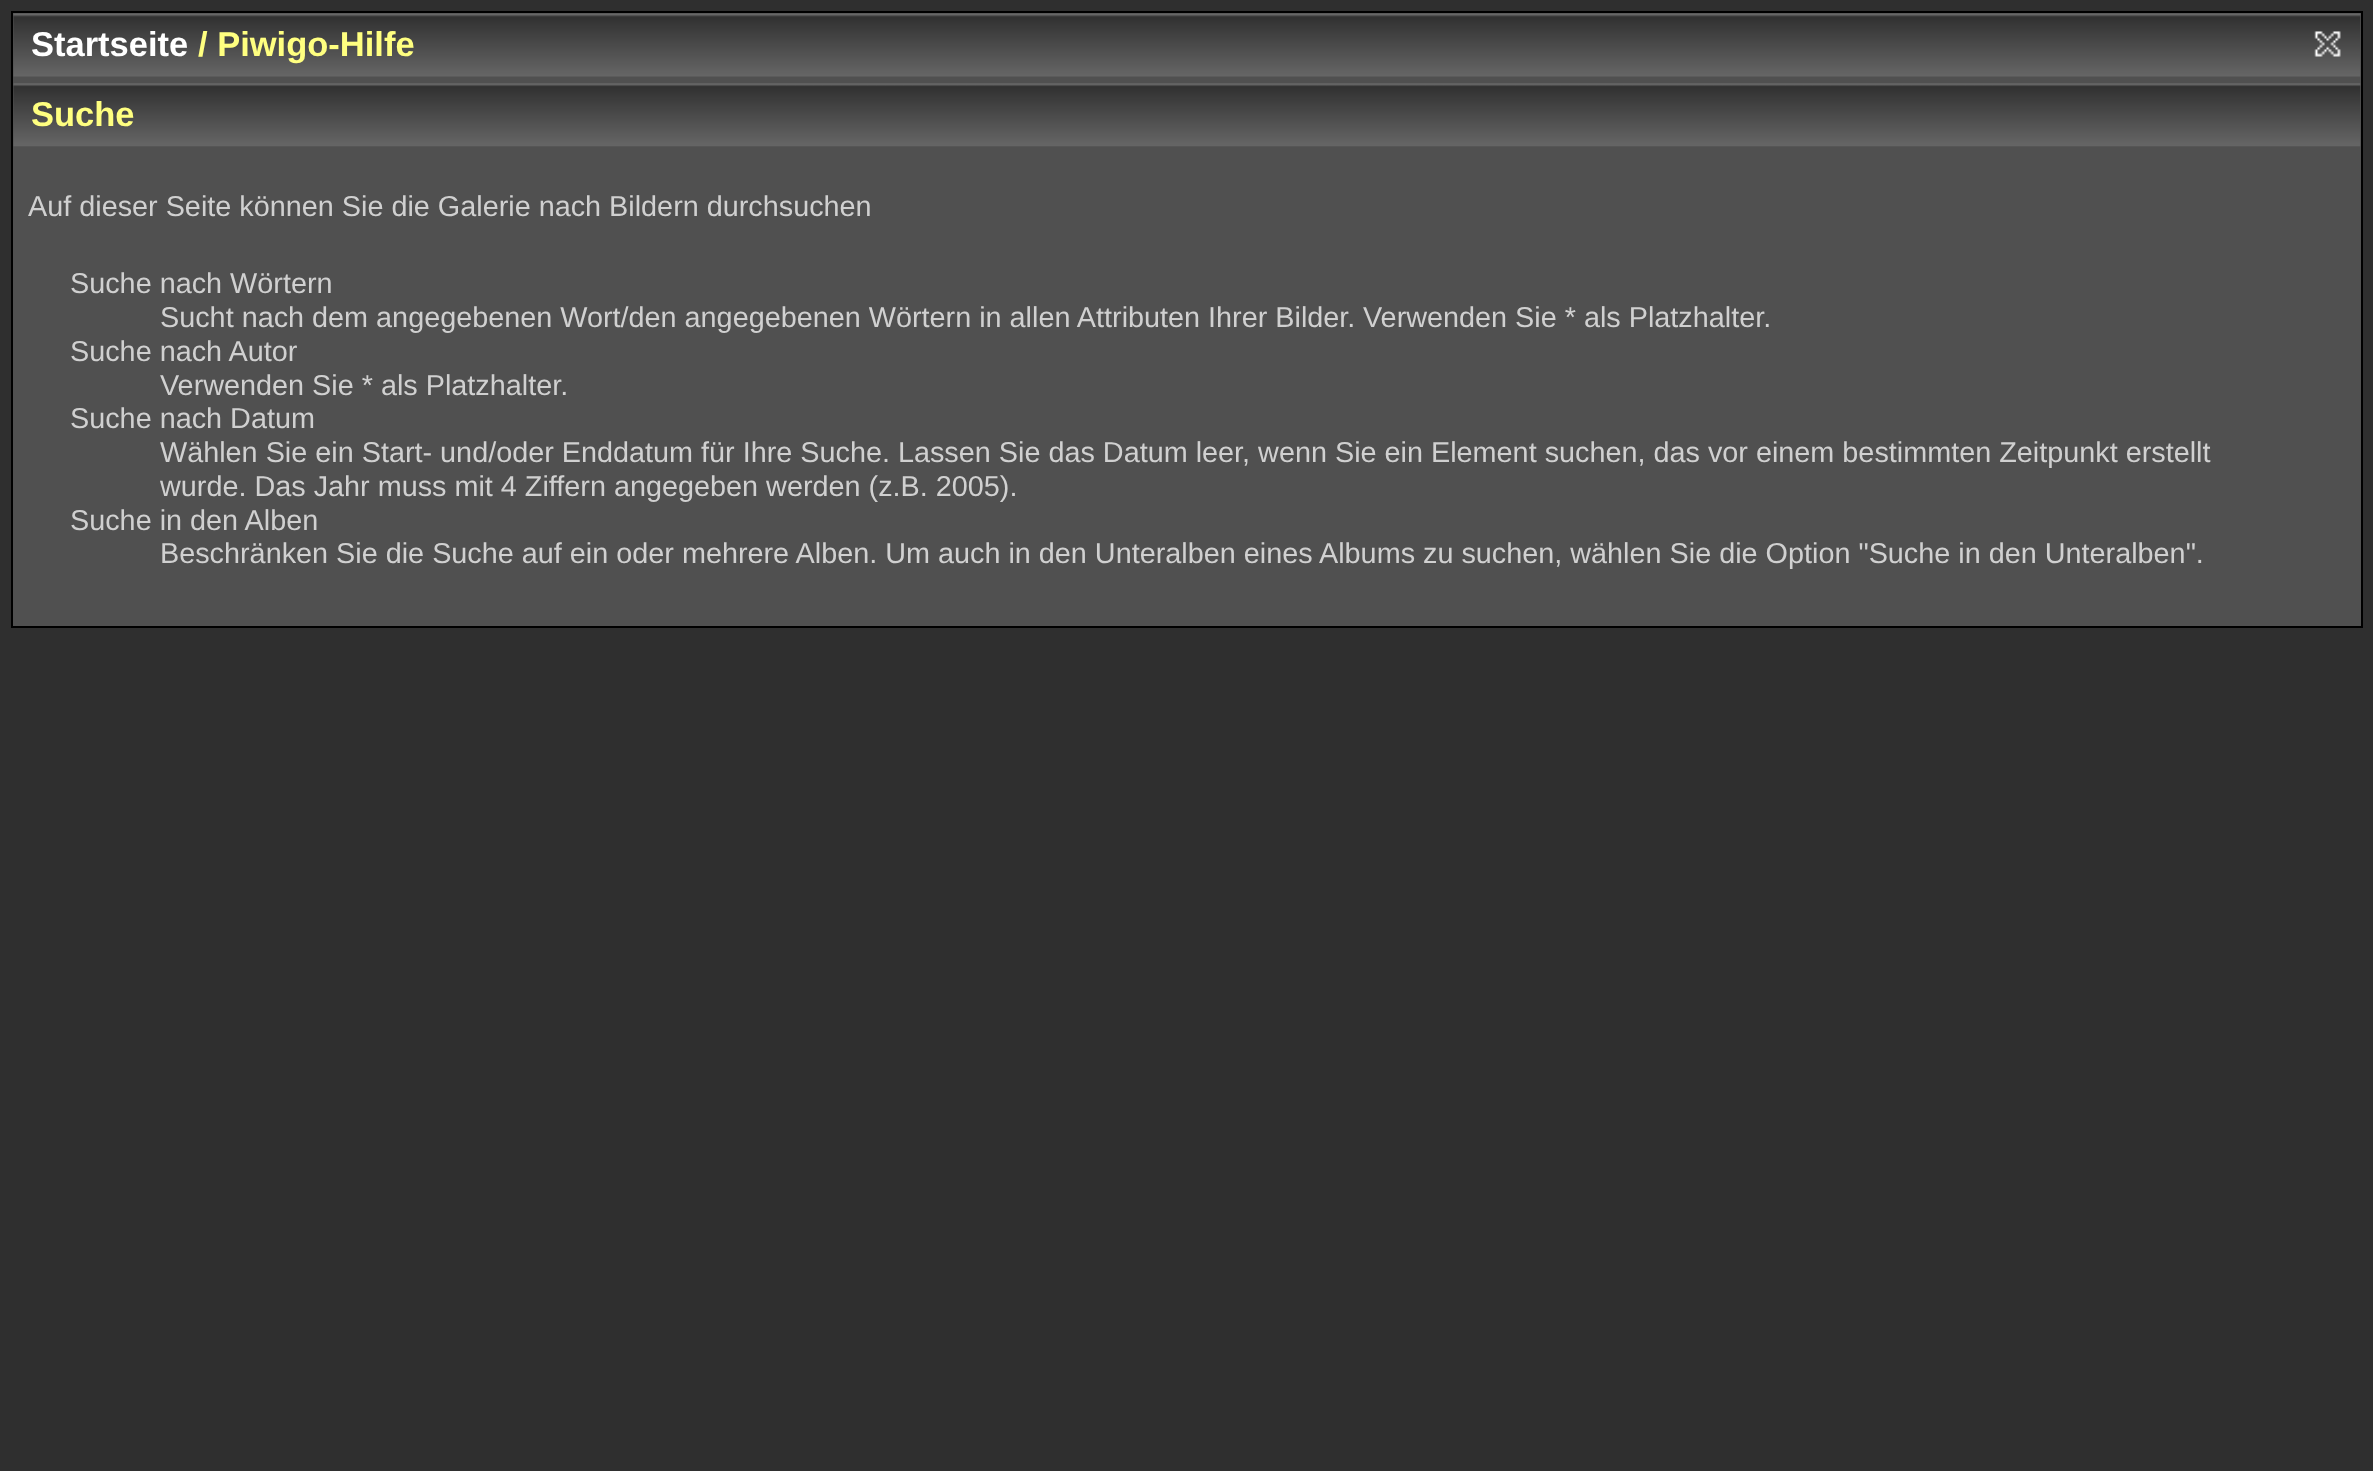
<!DOCTYPE html>
<meta charset="utf-8">
<style>body { margin: 0 } canvas { display: block }</style>
<canvas id="canvas" width="2373" height="1471"></canvas>
<img id="img1" src="images/1.png" hidden>
<img id="img2" src="images/2.png" hidden>
<img id="img3" src="images/3.png" hidden>
<script>
window.onload = function () {
    const canvas = document.getElementById('canvas');
    const context = canvas.getContext('2d');
    context.miterLimit = 4;
    context.fontKerning = 'normal';

    context.fillStyle = 'rgb(47, 47, 47)';
    context.fillRect(0, 0, 2373, 1471);
    context.fillStyle = 'rgb(80, 80, 80)';
    context.beginPath();
    context.rect(12, 12, 2350, 615);
    context.fill();
    context.strokeStyle = 'rgb(0, 0, 0)';
    context.lineWidth = 2;
    context.stroke();
    context.drawImage(document.getElementById('img1'), 13, 13, 2348, 64);
    context.drawImage(document.getElementById('img2'), 2314, 31, 27, 26);
    context.drawImage(document.getElementById('img3'), 13, 83, 2348, 64);
    context.font = 'bold 34.5px Liberation Sans';
    context.fillStyle = 'rgb(255, 255, 255)';
    context.fillText('Startseite', 31, 56);
    context.fillStyle = 'rgb(255, 255, 128)';
    context.fillText('/ Piwigo-Hilfe', 198, 56);
    context.fillText('Suche', 31, 126);
    context.font = '28.8px Liberation Sans';
    context.fillStyle = 'rgb(208, 208, 208)';
    context.fillText('Auf dieser Seite können Sie die Galerie nach Bildern durchsuchen', 28, 216);
    context.fillText('Suche nach Wörtern', 70, 293);
    context.fillText('Sucht nach dem angegebenen Wort/den angegebenen Wörtern in allen Attributen Ihrer Bilder.', 160, 327);
    context.fillText('Verwenden Sie * als Platzhalter.', 1363, 327);
    context.fillText('Suche nach Autor', 70, 361);
    context.fillText('Verwenden Sie * als Platzhalter.', 160, 395);
    context.fillText('Suche nach Datum', 70, 428);
    context.fillText('Wählen Sie ein Start- und/oder Enddatum für Ihre Suche. Lassen Sie das Datum leer, wenn Sie ein Element suchen, das vor einem bestimmten Zeitpunkt erstellt', 160, 462);
    context.fillText('wurde. Das Jahr muss mit 4 Ziffern angegeben werden (z.B. 2005).', 160, 496);
    context.fillText('Suche in den Alben', 70, 530);
    context.fillText('Beschränken Sie die Suche auf ein oder mehrere Alben. Um auch in den Unteralben eines Albums', 160, 563);
    context.fillText('zu suchen, wählen Sie die Option "Suche in den Unteralben".', 1423, 563);
};
</script>
